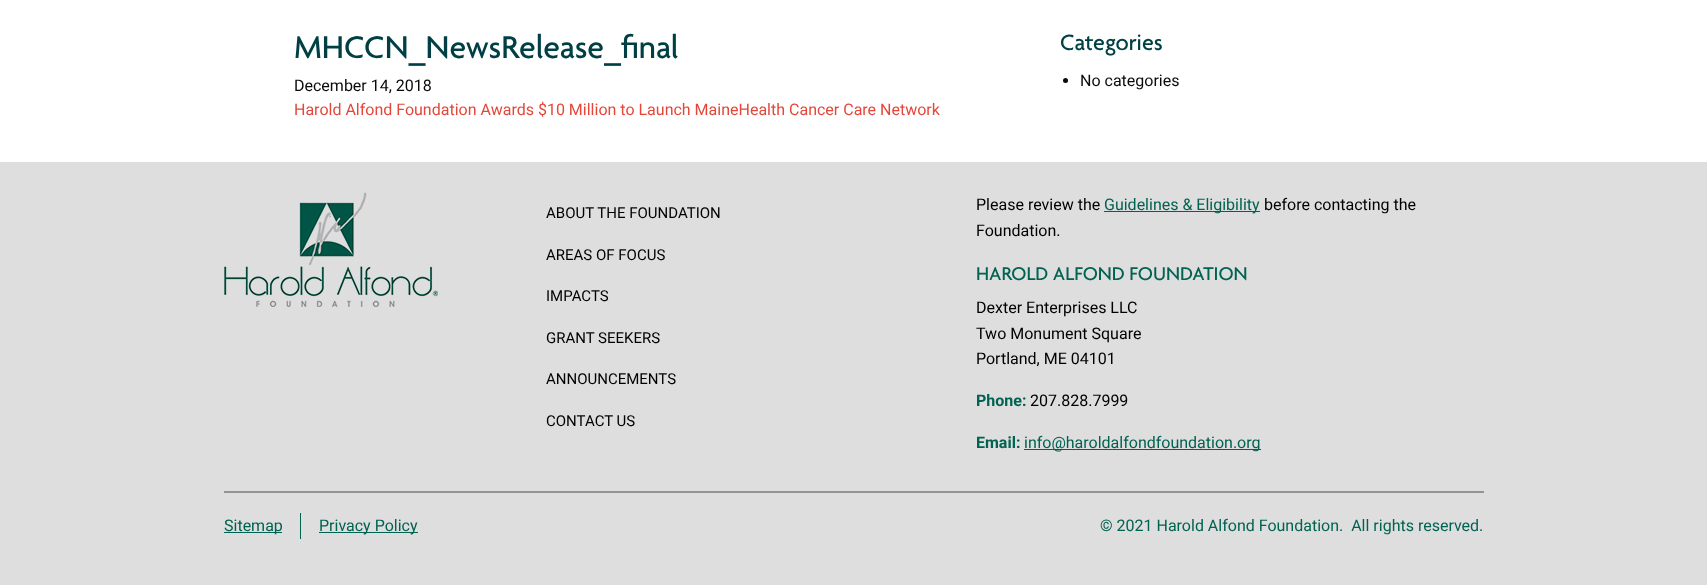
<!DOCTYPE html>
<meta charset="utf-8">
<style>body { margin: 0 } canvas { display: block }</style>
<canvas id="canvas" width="1707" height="585"></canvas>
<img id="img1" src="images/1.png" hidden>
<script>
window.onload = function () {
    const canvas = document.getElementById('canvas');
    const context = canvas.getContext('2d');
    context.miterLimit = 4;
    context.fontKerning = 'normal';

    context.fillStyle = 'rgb(255, 255, 255)';
    context.fillRect(0, 0, 1707, 585);
    context.fillStyle = 'rgb(10, 10, 10)';
    context.beginPath();
    context.arc(1065.5, 80.5, 2.5, 0, 2 * Math.PI);
    context.fill();
    context.fillStyle = 'rgb(222, 222, 222)';
    context.fillRect(0, 162, 1707, 423);
    context.drawImage(document.getElementById('img1'), 224, 192, 214, 115);
    context.fillStyle = 'rgb(0, 98, 81)';
    context.fillRect(1104, 211, 156, 1);
    context.fillRect(1024, 449, 237, 1);
    context.fillStyle = 'rgb(148, 148, 148)';
    context.fillRect(224, 491, 1260, 2);
    context.fillStyle = 'rgb(0, 98, 81)';
    context.fillRect(300, 513, 1, 26);
    context.fillRect(224, 532, 58, 1);
    context.fillRect(319, 532, 99, 1);
    context.font = '500 34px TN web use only';
    context.fillStyle = 'rgb(0, 64, 68)';
    context.fillText('MHCCN_NewsRelease_final', 294, 58);
    context.font = '16px Roboto';
    context.fillStyle = 'rgb(10, 10, 10)';
    context.fillText('December 14, 2018', 294, 91);
    context.fillStyle = 'rgb(228, 71, 57)';
    context.fillText('Harold Alfond Foundation Awards $10 Million to Launch MaineHealth Cancer Care Network', 294, 115);
    context.font = '500 24px TN web use only';
    context.fillStyle = 'rgb(0, 64, 68)';
    context.fillText('Categories', 1060, 50);
    context.font = '16px Roboto';
    context.fillStyle = 'rgb(10, 10, 10)';
    context.fillText('No categories', 1080, 86);
    context.font = '15px Roboto';
    context.fillStyle = 'rgb(0, 0, 0)';
    context.fillText('ABOUT THE FOUNDATION', 546, 218);
    context.fillText('AREAS OF FOCUS', 546, 260);
    context.fillText('IMPACTS', 546, 301);
    context.fillText('GRANT SEEKERS', 546, 343);
    context.fillText('ANNOUNCEMENTS', 546, 384);
    context.fillText('CONTACT US', 546, 426);
    context.font = '16px Roboto';
    context.fillText('Please review the', 976, 210);
    context.fillStyle = 'rgb(0, 98, 81)';
    context.fillText('Guidelines & Eligibility', 1104, 210);
    context.fillStyle = 'rgb(0, 0, 0)';
    context.fillText('before contacting the', 1264, 210);
    context.fillText('Foundation.', 976, 236);
    context.font = '500 20px TN web use only';
    context.fillStyle = 'rgb(0, 98, 81)';
    context.fillText('HAROLD ALFOND FOUNDATION', 976, 280);
    context.font = '16px Roboto';
    context.fillStyle = 'rgb(0, 0, 0)';
    context.fillText('Dexter Enterprises LLC', 976, 313);
    context.fillText('Two Monument Square', 976, 339);
    context.fillText('Portland, ME 04101', 976, 364);
    context.font = 'bold 16px Roboto';
    context.fillStyle = 'rgb(0, 98, 81)';
    context.fillText('Phone:', 976, 406);
    context.font = '16px Roboto';
    context.fillStyle = 'rgb(0, 0, 0)';
    context.fillText('207.828.7999', 1030, 406);
    context.font = 'bold 16px Roboto';
    context.fillStyle = 'rgb(0, 98, 81)';
    context.fillText('Email:', 976, 448);
    context.font = '16px Roboto';
    context.fillText('info@haroldalfondfoundation.org', 1024, 448);
    context.fillText('Sitemap', 224, 531);
    context.fillText('Privacy Policy', 319, 531);
    context.fillText('© 2021 Harold Alfond Foundation.  All rights reserved.', 1100, 531);
};
</script>
